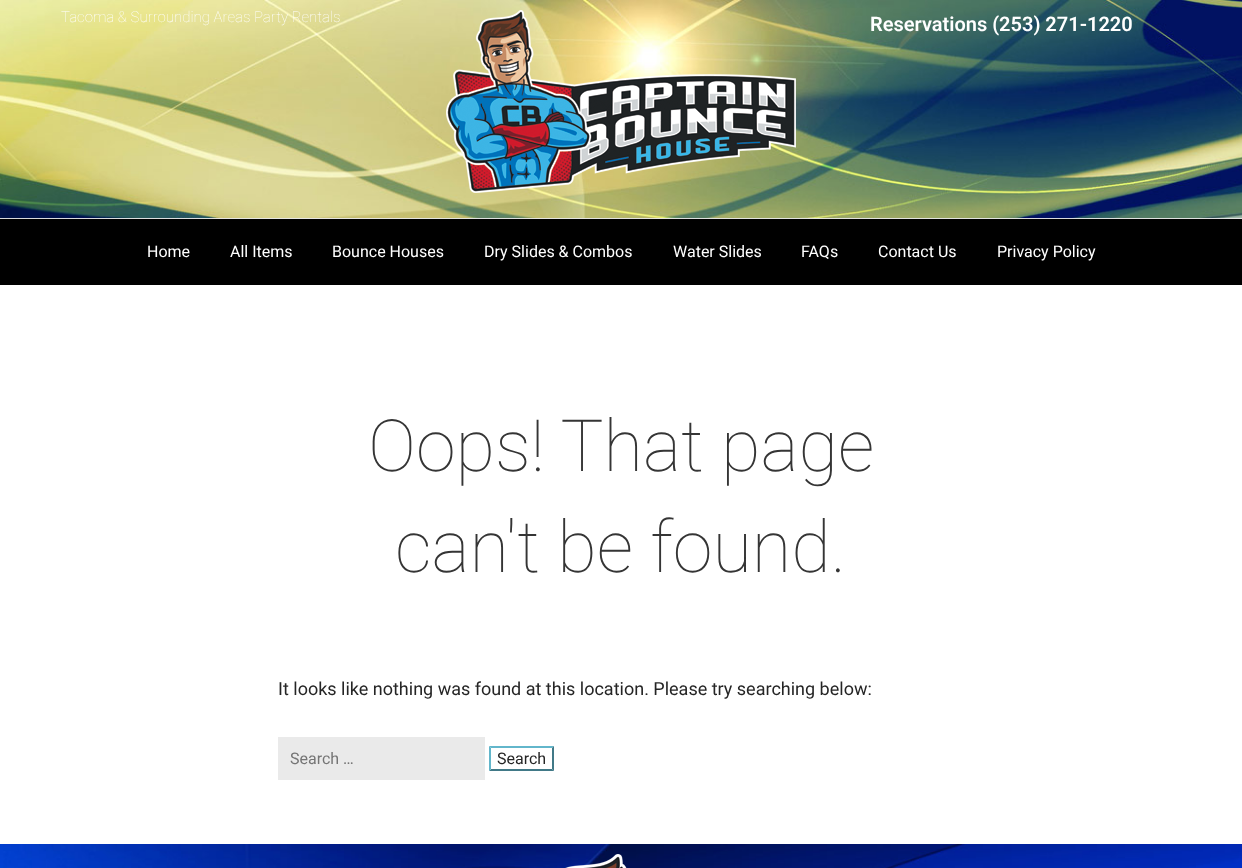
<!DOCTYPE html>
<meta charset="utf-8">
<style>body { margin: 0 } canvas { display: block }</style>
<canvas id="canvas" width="1242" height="868"></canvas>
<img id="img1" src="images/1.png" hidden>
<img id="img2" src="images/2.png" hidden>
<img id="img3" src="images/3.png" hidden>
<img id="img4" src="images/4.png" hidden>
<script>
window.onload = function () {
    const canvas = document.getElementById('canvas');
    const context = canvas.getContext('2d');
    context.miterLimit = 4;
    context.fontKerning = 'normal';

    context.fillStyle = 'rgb(255, 255, 255)';
    context.fillRect(0, 0, 1242, 868);
    context.drawImage(document.getElementById('img1'), 0, 0, 1242, 219);
    context.drawImage(document.getElementById('img2'), 446, 10, 350, 183);
    context.fillStyle = 'rgb(0, 0, 0)';
    context.fillRect(0, 219, 1242, 66);
    context.fillStyle = 'rgb(234, 234, 234)';
    context.fillRect(278, 737, 207, 43);
    context.fillStyle = 'rgb(98, 182, 203)';
    context.beginPath();
    context.moveTo(489, 746);
    context.lineTo(554, 746);
    context.lineTo(552, 748);
    context.lineTo(491, 748);
    context.closePath();
    context.fill();
    context.fillStyle = 'rgb(65, 121, 135)';
    context.beginPath();
    context.moveTo(554, 746);
    context.lineTo(554, 771);
    context.lineTo(552, 769);
    context.lineTo(552, 748);
    context.closePath();
    context.fill();
    context.beginPath();
    context.moveTo(554, 771);
    context.lineTo(489, 771);
    context.lineTo(491, 769);
    context.lineTo(552, 769);
    context.closePath();
    context.fill();
    context.fillStyle = 'rgb(98, 182, 203)';
    context.beginPath();
    context.moveTo(489, 771);
    context.lineTo(489, 746);
    context.lineTo(491, 748);
    context.lineTo(491, 769);
    context.closePath();
    context.fill();
    context.drawImage(document.getElementById('img3'), 0, 844, 1242, 24);
    context.drawImage(document.getElementById('img4'), 565, 854, 62, 14);
    context.font = '100 15px Roboto';
    context.fillStyle = 'rgb(255, 255, 255)';
    context.fillText('Tacoma & Surrounding Areas Party Rentals', 61, 22);
    context.font = '600 20px Roboto';
    context.fillText('Reservations (253) 271-1220', 870, 31);
    context.font = '16px Roboto';
    context.fillText('Home', 147, 257);
    context.fillText('All Items', 230, 257);
    context.fillText('Bounce Houses', 332, 257);
    context.fillText('Dry Slides & Combos', 484, 257);
    context.fillText('Water Slides', 673, 257);
    context.fillText('FAQs', 801, 257);
    context.fillText('Contact Us', 878, 257);
    context.fillText('Privacy Policy', 997, 257);
    context.font = '100 72px Roboto';
    context.fillStyle = 'rgb(53, 53, 53)';
    context.fillText('Oops! That page', 368, 471);
    context.fillText('can\'t be found.', 395, 572);
    context.font = '18px Roboto';
    context.fillStyle = 'rgb(37, 37, 37)';
    context.fillText('It looks like nothing was found at this location. Please try searching below:', 278, 695);
    context.font = '16px Roboto';
    context.fillStyle = 'rgb(117, 117, 117)';
    context.fillText('Search …', 290, 764);
    context.fillStyle = 'rgb(37, 37, 37)';
    context.fillText('Search', 497, 764);
};
</script>
